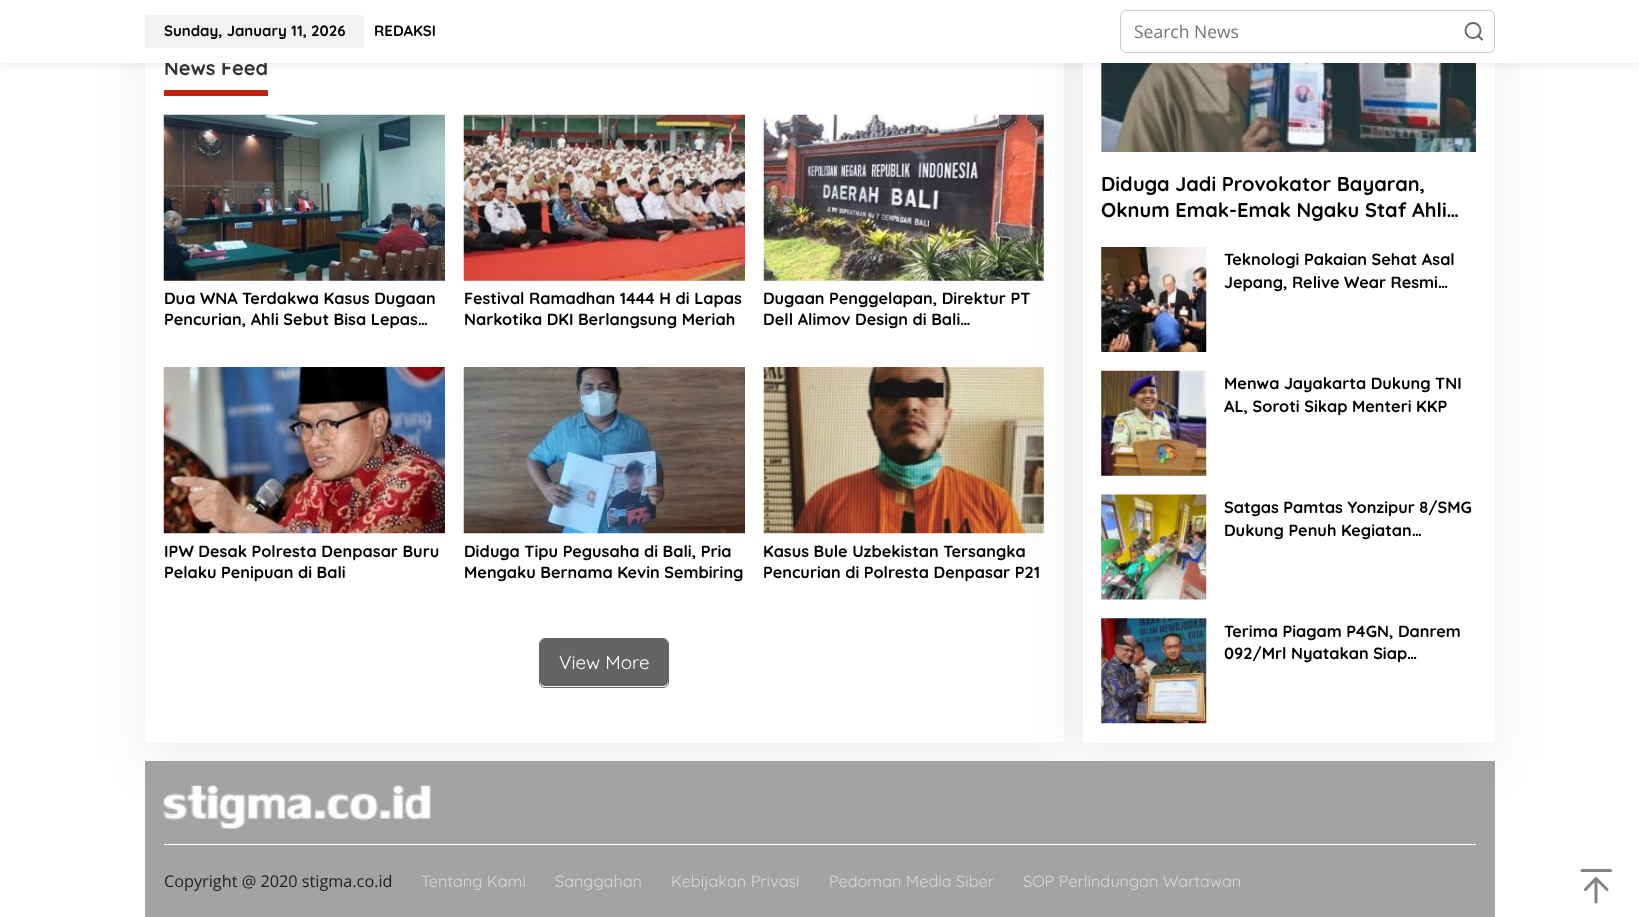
<!DOCTYPE html>
<meta charset="utf-8">
<style>body { margin: 0 } canvas { display: block }</style>
<canvas id="canvas" width="1639" height="917"></canvas>
<img id="img1" src="images/3.png" hidden>
<img id="img2" src="images/6.png" hidden>
<img id="img3" src="images/7.png" hidden>
<img id="img4" src="images/1.png" hidden>
<img id="img5" src="images/2.png" hidden>
<img id="img6" src="images/4.png" hidden>
<img id="img7" src="images/5.png" hidden>
<img id="img8" src="images/8.png" hidden>
<img id="img9" src="images/9.png" hidden>
<img id="img10" src="images/10.png" hidden>
<img id="img11" src="images/11.png" hidden>
<img id="img12" src="images/12.png" hidden>
<script>
window.onload = function () {
    const canvas = document.getElementById('canvas');
    const context = canvas.getContext('2d');
    context.miterLimit = 4;
    context.fontKerning = 'normal';

    context.fillStyle = 'rgb(255, 255, 255)';
    context.fillRect(0, 0, 1639, 917);
    context.fillStyle = 'rgba(0, 0, 0, 0.07)';
    context.filter = 'blur(28px)';
    context.beginPath();
    context.rect(145, -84, 919, 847);
    context.fill();
    context.filter = 'none';
    context.fillStyle = 'rgb(255, 255, 255)';
    context.fillRect(145, 63, 919, 680);
    context.drawImage(document.getElementById('img1'), 763, 114, 281, 167);
    context.drawImage(document.getElementById('img2'), 763, 367, 281, 167);
    context.fillStyle = 'rgba(0, 0, 0, 0.07)';
    context.filter = 'blur(28px)';
    context.beginPath();
    context.rect(1083, -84, 412, 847);
    context.fill();
    context.filter = 'none';
    context.fillStyle = 'rgb(255, 255, 255)';
    context.fillRect(1083, 63, 412, 680);
    context.drawImage(document.getElementById('img3'), 1101, 63, 375, 89);
    context.fillStyle = 'rgba(0, 0, 0, 0.1)';
    context.filter = 'blur(6px)';
    context.beginPath();
    context.rect(0, 0, 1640, 63);
    context.fill();
    context.filter = 'none';
    context.fillStyle = 'rgb(191, 37, 13)';
    context.fillRect(164, 90, 104, 6);
    context.drawImage(document.getElementById('img4'), 163, 114, 282, 167);
    context.drawImage(document.getElementById('img5'), 463, 114, 282, 167);
    context.drawImage(document.getElementById('img6'), 163, 367, 282, 167);
    context.drawImage(document.getElementById('img7'), 463, 367, 282, 167);
    context.fillStyle = 'rgb(99, 99, 99)';
    context.beginPath();
    context.roundRect(540, 639, 128, 47, 5);
    context.fill();
    context.beginPath();
    context.roundRect(539.5, 638.5, 129, 49, 5.5);
    context.strokeStyle = 'rgb(99, 99, 99)';
    context.stroke();
    context.drawImage(document.getElementById('img8'), 1101, 247, 106, 105);
    context.drawImage(document.getElementById('img9'), 1101, 370, 106, 106);
    context.drawImage(document.getElementById('img10'), 1101, 494, 106, 106);
    context.drawImage(document.getElementById('img11'), 1101, 618, 106, 106);
    context.fillStyle = 'rgb(163, 163, 163)';
    context.fillRect(145, 761, 1350, 156);
    context.fillStyle = 'rgb(255, 255, 255)';
    context.fillRect(164, 844, 1312, 1);
    context.drawImage(document.getElementById('img12'), 163, 785, 268, 44);
    context.beginPath();
    context.moveTo(1596, 902);
    context.lineTo(1596, 878.5);
    context.moveTo(1585.5, 889.5);
    context.lineTo(1596, 878.5);
    context.lineTo(1607, 889.5);
    context.moveTo(1582, 870.5);
    context.lineTo(1610.5, 870.5);
    context.strokeStyle = 'rgb(132, 132, 133)';
    context.lineWidth = 3.1;
    context.lineCap = 'round';
    context.lineJoin = 'round';
    context.stroke();
    context.font = 'bold 20px Quicksand';
    context.fillStyle = 'rgb(50, 50, 51)';
    context.fillText('News Feed', 164, 75);
    context.fillStyle = 'rgb(255, 255, 255)';
    context.fillRect(0, 0, 1639, 63);
    context.beginPath();
    context.roundRect(1120.5, 10.5, 374, 42, 5.5);
    context.strokeStyle = 'rgb(204, 204, 204)';
    context.lineWidth = 1;
    context.lineJoin = 'miter';
    context.stroke();
    context.beginPath();
    context.arc(1473, 30.5, 7.5, 0, 2 * Math.PI);
    context.strokeStyle = 'rgb(102, 102, 102)';
    context.lineWidth = 1.9;
    context.stroke();
    context.beginPath();
    context.moveTo(1482, 39.5);
    context.lineTo(1478, 35.5);
    context.lineJoin = 'round';
    context.stroke();
    context.font = '17.5px Open Sans';
    context.fillStyle = 'rgb(117, 117, 117)';
    context.fillText('Search News', 1134, 38);
    context.font = 'bold 15px Quicksand';
    context.fillStyle = 'rgb(0, 0, 0)';
    context.fillText('REDAKSI', 374, 36);
    context.fillStyle = 'rgb(242, 242, 242)';
    context.fillRect(145, 15, 219, 33);
    context.fillStyle = 'rgb(0, 0, 0)';
    context.fillText('Sunday, January 11, 2026', 164, 36);
    context.font = 'bold 16.25px Quicksand';
    context.fillText('Dua WNA Terdakwa Kasus Dugaan', 164, 304);
    context.fillText('Pencurian, Ahli Sebut Bisa Lepas…', 164, 325);
    context.fillText('Festival Ramadhan 1444 H di Lapas', 464, 304);
    context.fillText('Narkotika DKI Berlangsung Meriah', 464, 325);
    context.fillText('Dugaan Penggelapan, Direktur PT', 763, 304);
    context.fillText('Dell Alimov Design di Bali…', 763, 325);
    context.fillText('IPW Desak Polresta Denpasar Buru', 164, 557);
    context.fillText('Pelaku Penipuan di Bali', 164, 578);
    context.fillText('Diduga Tipu Pegusaha di Bali, Pria', 464, 557);
    context.fillText('Mengaku Bernama Kevin Sembiring', 464, 578);
    context.fillText('Kasus Bule Uzbekistan Tersangka', 763, 557);
    context.fillText('Pencurian di Polresta Denpasar P21', 763, 578);
    context.font = '18.75px Quicksand';
    context.fillStyle = 'rgb(255, 255, 255)';
    context.fillText('View More', 559, 669);
    context.font = 'bold 20px Quicksand';
    context.fillStyle = 'rgb(0, 0, 0)';
    context.fillText('Diduga Jadi Provokator Bayaran,', 1101, 191);
    context.fillText('Oknum Emak-Emak Ngaku Staf Ahli…', 1101, 217);
    context.font = 'bold 16.25px Quicksand';
    context.fillText('Teknologi Pakaian Sehat Asal', 1224, 265);
    context.fillText('Jepang, Relive Wear Resmi…', 1224, 288);
    context.fillText('Menwa Jayakarta Dukung TNI', 1224, 389);
    context.fillText('AL, Soroti Sikap Menteri KKP', 1224, 412);
    context.fillText('Satgas Pamtas Yonzipur 8/SMG', 1224, 513);
    context.fillText('Dukung Penuh Kegiatan…', 1224, 536);
    context.fillText('Terima Piagam P4GN, Danrem', 1224, 637);
    context.fillText('092/Mrl Nyatakan Siap…', 1224, 659);
    context.font = '16.25px Open Sans';
    context.fillStyle = 'rgb(30, 30, 30)';
    context.fillText('Copyright @ 2020 stigma.co.id', 164, 887);
    context.font = '16.25px Quicksand';
    context.fillStyle = 'rgb(215, 215, 215)';
    context.fillText('Tentang Kami', 421, 887);
    context.fillText('Sanggahan', 555, 887);
    context.fillText('Kebijakan Privasi', 671, 887);
    context.fillText('Pedoman Media Siber', 829, 887);
    context.fillText('SOP Perlindungan Wartawan', 1023, 887);
};
</script>
